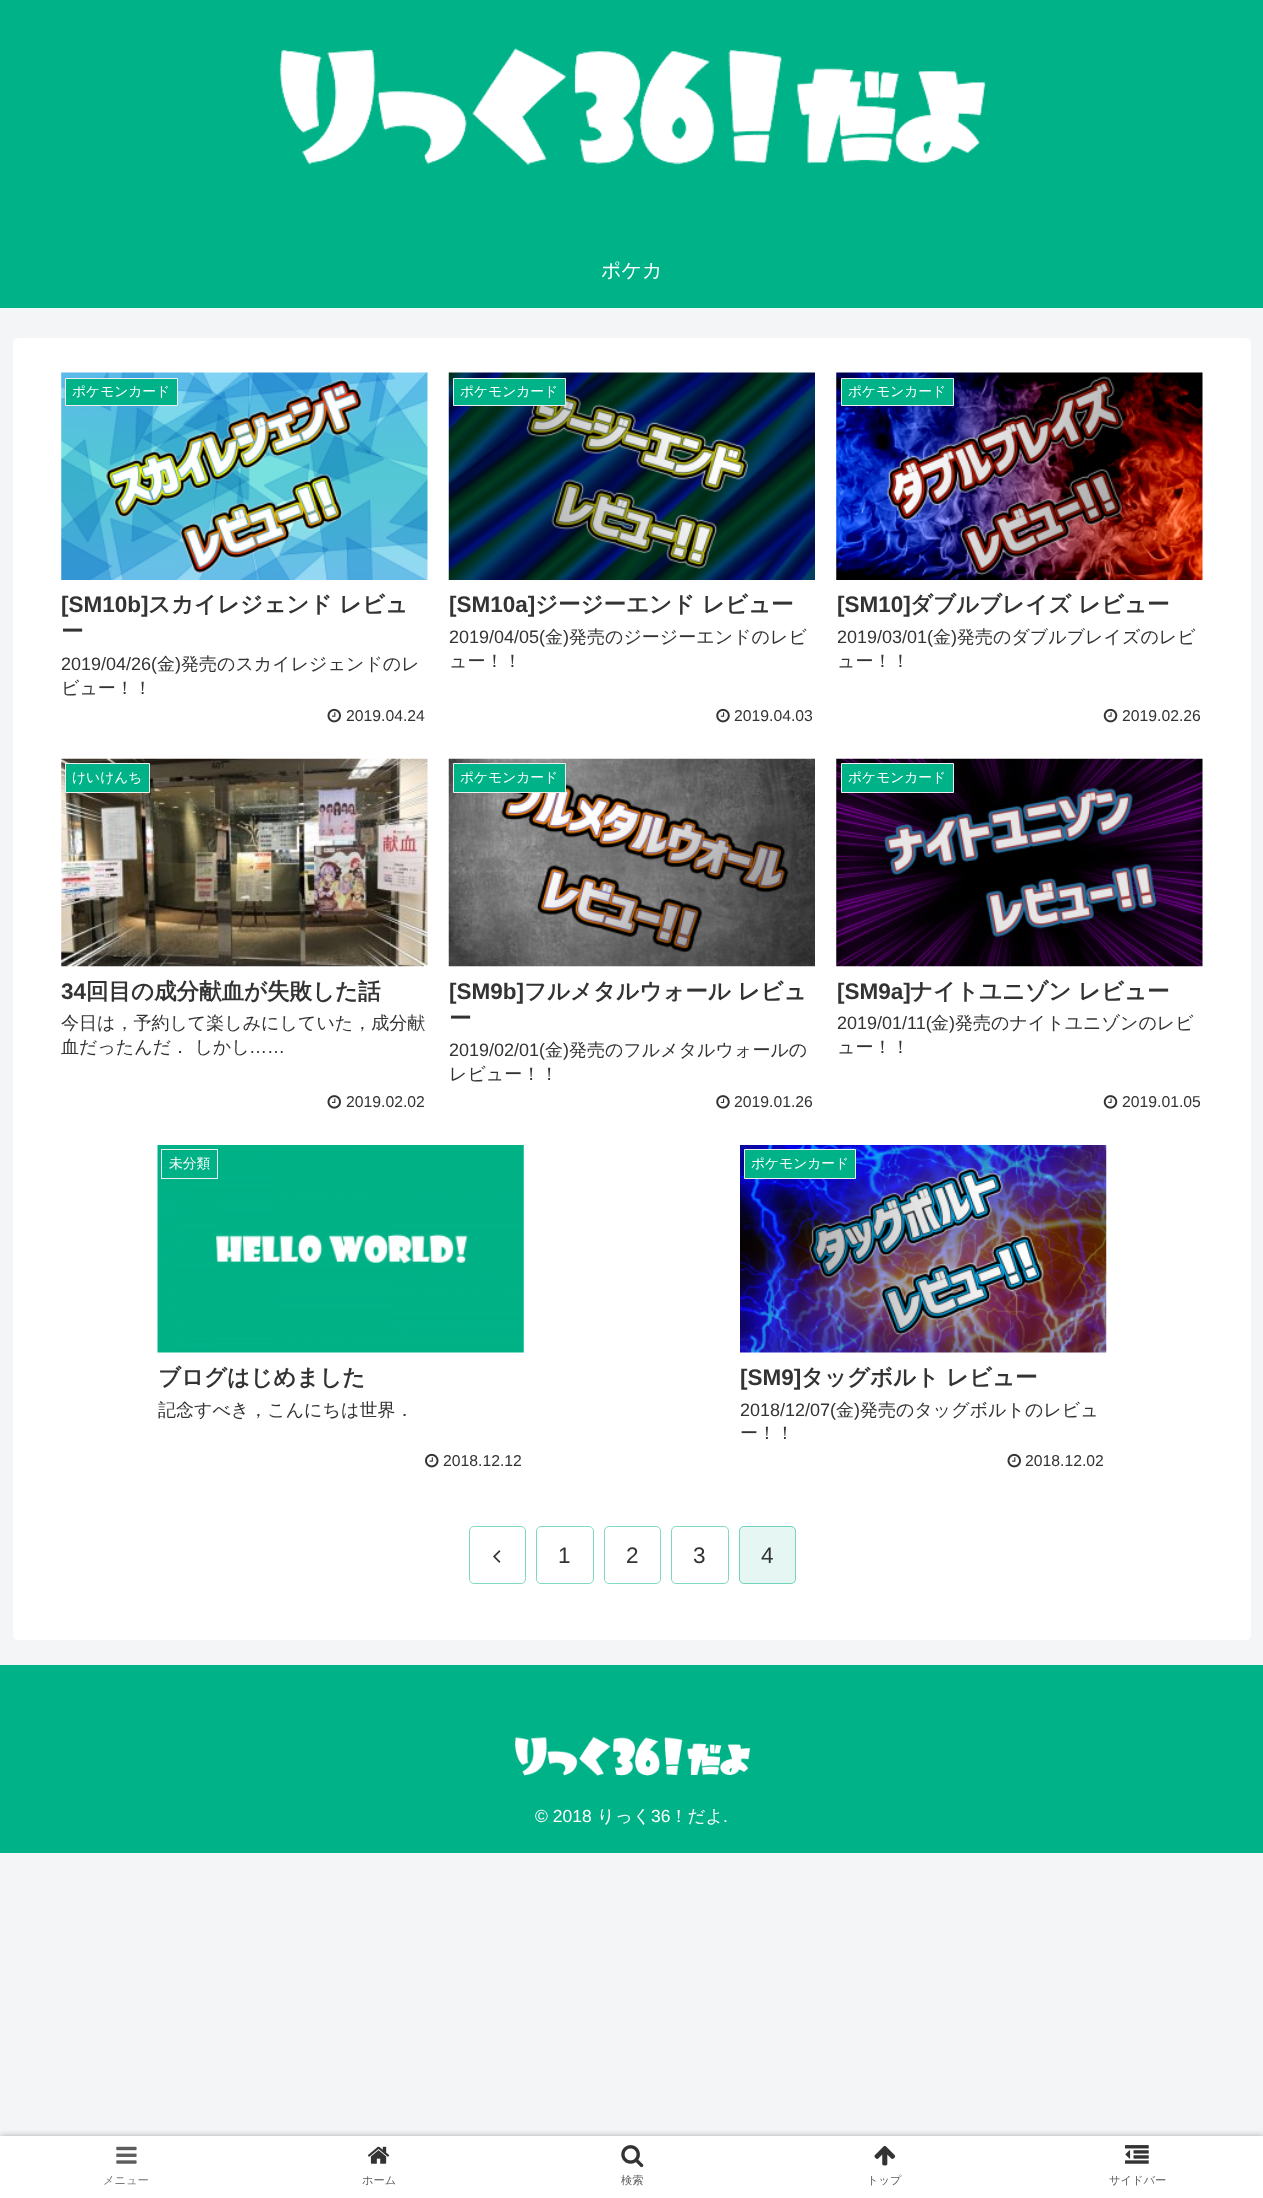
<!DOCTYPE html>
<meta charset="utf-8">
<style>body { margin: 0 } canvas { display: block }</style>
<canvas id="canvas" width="1263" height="2198"></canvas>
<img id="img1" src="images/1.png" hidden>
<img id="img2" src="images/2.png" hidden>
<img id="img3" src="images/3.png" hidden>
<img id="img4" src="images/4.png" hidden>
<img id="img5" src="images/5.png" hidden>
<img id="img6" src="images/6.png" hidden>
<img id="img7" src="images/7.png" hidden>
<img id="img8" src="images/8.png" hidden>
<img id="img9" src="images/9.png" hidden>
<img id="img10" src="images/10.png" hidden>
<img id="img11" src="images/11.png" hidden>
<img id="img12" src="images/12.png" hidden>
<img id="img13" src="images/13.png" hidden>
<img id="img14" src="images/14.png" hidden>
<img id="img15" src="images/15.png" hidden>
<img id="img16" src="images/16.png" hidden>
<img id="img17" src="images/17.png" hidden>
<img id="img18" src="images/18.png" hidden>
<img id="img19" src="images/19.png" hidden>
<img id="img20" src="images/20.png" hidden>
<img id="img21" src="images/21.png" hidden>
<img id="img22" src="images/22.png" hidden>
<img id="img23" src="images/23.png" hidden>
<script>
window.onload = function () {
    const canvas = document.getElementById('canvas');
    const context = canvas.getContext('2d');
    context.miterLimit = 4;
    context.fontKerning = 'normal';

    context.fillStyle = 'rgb(244, 245, 247)';
    context.fillRect(0, 0, 1263, 2198);
    context.fillStyle = 'rgb(0, 178, 135)';
    context.fillRect(0, 0, 1263, 308);
    context.drawImage(document.getElementById('img1'), 279, 48, 707, 118);
    context.fillStyle = 'rgb(255, 255, 255)';
    context.beginPath();
    context.roundRect(13, 338, 1238, 1302, 5);
    context.fill();
    context.drawImage(document.getElementById('img2'), 61, 372, 367, 208);
    context.fillStyle = 'rgb(0, 178, 135)';
    context.beginPath();
    context.rect(65.5, 378.5, 112, 27);
    context.fill();
    context.strokeStyle = 'rgb(238, 238, 238)';
    context.stroke();
    context.drawImage(document.getElementById('img3'), 327, 708, 14, 15);
    context.drawImage(document.getElementById('img4'), 448, 372, 367, 208);
    context.beginPath();
    context.rect(453.5, 378.5, 112, 27);
    context.fill();
    context.stroke();
    context.drawImage(document.getElementById('img5'), 716, 708, 14, 15);
    context.drawImage(document.getElementById('img6'), 836, 372, 367, 208);
    context.beginPath();
    context.rect(841.5, 378.5, 112, 27);
    context.fill();
    context.stroke();
    context.drawImage(document.getElementById('img7'), 1103, 708, 15, 15);
    context.drawImage(document.getElementById('img8'), 61, 758, 367, 209);
    context.beginPath();
    context.rect(65.5, 763.5, 84, 29);
    context.fill();
    context.stroke();
    context.drawImage(document.getElementById('img9'), 327, 1095, 14, 14);
    context.drawImage(document.getElementById('img10'), 448, 758, 367, 209);
    context.beginPath();
    context.rect(453.5, 763.5, 112, 29);
    context.fill();
    context.stroke();
    context.drawImage(document.getElementById('img11'), 716, 1095, 14, 14);
    context.drawImage(document.getElementById('img12'), 836, 758, 367, 209);
    context.beginPath();
    context.rect(841.5, 763.5, 112, 29);
    context.fill();
    context.stroke();
    context.drawImage(document.getElementById('img13'), 1103, 1095, 15, 14);
    context.drawImage(document.getElementById('img14'), 157, 1145, 367, 208);
    context.strokeRect(161.5, 1149.5, 56, 29);
    context.drawImage(document.getElementById('img15'), 425, 1453, 14, 15);
    context.drawImage(document.getElementById('img16'), 740, 1145, 367, 208);
    context.beginPath();
    context.rect(744.5, 1149.5, 111, 29);
    context.fill();
    context.stroke();
    context.drawImage(document.getElementById('img3'), 1007, 1453, 14, 15);
    context.beginPath();
    context.roundRect(469.5, 1526.5, 56, 57, 4.5);
    context.strokeStyle = 'rgb(128, 217, 195)';
    context.stroke();
    context.drawImage(document.getElementById('img17'), 493, 1550, 8, 13);
    context.beginPath();
    context.roundRect(536.5, 1526.5, 57, 57, 4.5);
    context.stroke();
    context.beginPath();
    context.roundRect(604.5, 1526.5, 56, 57, 4.5);
    context.stroke();
    context.beginPath();
    context.roundRect(671.5, 1526.5, 57, 57, 4.5);
    context.stroke();
    context.fillStyle = 'rgb(230, 247, 243)';
    context.beginPath();
    context.roundRect(739, 1526, 57, 58, 5);
    context.fill();
    context.beginPath();
    context.roundRect(739.5, 1526.5, 56, 57, 4.5);
    context.strokeStyle = 'rgba(0, 178, 135, 0.5)';
    context.stroke();
    context.fillStyle = 'rgb(0, 178, 135)';
    context.fillRect(0, 1665, 1263, 188);
    context.drawImage(document.getElementById('img18'), 515, 1736, 235, 40);
    context.fillStyle = 'rgb(169, 169, 169)';
    context.filter = 'blur(3px)';
    context.beginPath();
    context.rect(0, 2136, 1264, 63);
    context.fill();
    context.filter = 'none';
    context.fillStyle = 'rgb(255, 255, 255)';
    context.fillRect(0, 2136, 1263, 62);
    context.drawImage(document.getElementById('img19'), 116, 2146, 21, 18);
    context.drawImage(document.getElementById('img20'), 367, 2146, 23, 18);
    context.drawImage(document.getElementById('img21'), 621, 2145, 23, 23);
    context.drawImage(document.getElementById('img22'), 874, 2146, 22, 20);
    context.drawImage(document.getElementById('img23'), 1125, 2145, 24, 19);
    context.font = '500 20px WenQuanYi Zen Hei';
    context.fillText('ポケカ', 601, 277);
    context.font = '500 13.75px WenQuanYi Zen Hei';
    context.fillText('ポケモンカード', 72, 396);
    context.font = 'bold 22.5px Liberation Sans';
    context.fillStyle = 'rgb(51, 51, 51)';
    context.fillText('[SM10b]', 61, 612);
    context.font = 'bold 22.5px WenQuanYi Zen Hei';
    context.fillText('スカイレジェンド レビュ', 148, 612);
    context.fillText('ー', 61, 639);
    context.font = '18px Liberation Sans';
    context.fillText('2019/04/26(', 61, 670);
    context.font = '500 18px WenQuanYi Zen Hei';
    context.fillText('金', 157, 670);
    context.font = '18px Liberation Sans';
    context.fillText(')', 175, 670);
    context.font = '500 18px WenQuanYi Zen Hei';
    context.fillText('発売のスカイレジェンドのレ', 181, 670);
    context.fillText('ビュー！！', 61, 694);
    context.font = '15.75px Liberation Sans';
    context.fillText('2019.04.24', 346, 721);
    context.font = '500 13.75px WenQuanYi Zen Hei';
    context.fillStyle = 'rgb(255, 255, 255)';
    context.fillText('ポケモンカード', 460, 396);
    context.font = 'bold 22.5px Liberation Sans';
    context.fillStyle = 'rgb(51, 51, 51)';
    context.fillText('[SM10a]', 449, 612);
    context.font = 'bold 22.5px WenQuanYi Zen Hei';
    context.fillText('ジージーエンド レビュー', 535, 612);
    context.font = '18px Liberation Sans';
    context.fillText('2019/04/05(', 449, 643);
    context.font = '500 18px WenQuanYi Zen Hei';
    context.fillText('金', 545, 643);
    context.font = '18px Liberation Sans';
    context.fillText(')', 563, 643);
    context.font = '500 18px WenQuanYi Zen Hei';
    context.fillText('発売のジージーエンドのレビ', 569, 643);
    context.fillText('ュー！！', 449, 667);
    context.font = '15.75px Liberation Sans';
    context.fillText('2019.04.03', 734, 721);
    context.font = '500 13.75px WenQuanYi Zen Hei';
    context.fillStyle = 'rgb(255, 255, 255)';
    context.fillText('ポケモンカード', 848, 396);
    context.font = 'bold 22.5px Liberation Sans';
    context.fillStyle = 'rgb(51, 51, 51)';
    context.fillText('[SM10]', 837, 612);
    context.font = 'bold 22.5px WenQuanYi Zen Hei';
    context.fillText('ダブルブレイズ レビュー', 910, 612);
    context.font = '18px Liberation Sans';
    context.fillText('2019/03/01(', 837, 643);
    context.font = '500 18px WenQuanYi Zen Hei';
    context.fillText('金', 933, 643);
    context.font = '18px Liberation Sans';
    context.fillText(')', 951, 643);
    context.font = '500 18px WenQuanYi Zen Hei';
    context.fillText('発売のダブルブレイズのレビ', 957, 643);
    context.fillText('ュー！！', 837, 667);
    context.font = '15.75px Liberation Sans';
    context.fillText('2019.02.26', 1122, 721);
    context.font = '500 13.75px WenQuanYi Zen Hei';
    context.fillStyle = 'rgb(255, 255, 255)';
    context.fillText('けいけんち', 72, 782);
    context.font = 'bold 22.5px Liberation Sans';
    context.fillStyle = 'rgb(51, 51, 51)';
    context.fillText('34', 61, 999);
    context.font = 'bold 22.5px WenQuanYi Zen Hei';
    context.fillText('回目の成分献血が失敗した話', 86, 999);
    context.font = '500 18px WenQuanYi Zen Hei';
    context.fillText('今日は，予約して楽しみにしていた，成分献', 61, 1029);
    context.fillText('血だったんだ． しかし', 61, 1053);
    context.font = '18px Liberation Sans';
    context.fillText('……', 249, 1053);
    context.font = '15.75px Liberation Sans';
    context.fillText('2019.02.02', 346, 1107);
    context.font = '500 13.75px WenQuanYi Zen Hei';
    context.fillStyle = 'rgb(255, 255, 255)';
    context.fillText('ポケモンカード', 460, 782);
    context.font = 'bold 22.5px Liberation Sans';
    context.fillStyle = 'rgb(51, 51, 51)';
    context.fillText('[SM9b]', 449, 999);
    context.font = 'bold 22.5px WenQuanYi Zen Hei';
    context.fillText('フルメタルウォール レビュ', 524, 999);
    context.fillText('ー', 449, 1026);
    context.font = '18px Liberation Sans';
    context.fillText('2019/02/01(', 449, 1056);
    context.font = '500 18px WenQuanYi Zen Hei';
    context.fillText('金', 545, 1056);
    context.font = '18px Liberation Sans';
    context.fillText(')', 563, 1056);
    context.font = '500 18px WenQuanYi Zen Hei';
    context.fillText('発売のフルメタルウォールの', 569, 1056);
    context.fillText('レビュー！！', 449, 1080);
    context.font = '15.75px Liberation Sans';
    context.fillText('2019.01.26', 734, 1107);
    context.font = '500 13.75px WenQuanYi Zen Hei';
    context.fillStyle = 'rgb(255, 255, 255)';
    context.fillText('ポケモンカード', 848, 782);
    context.font = 'bold 22.5px Liberation Sans';
    context.fillStyle = 'rgb(51, 51, 51)';
    context.fillText('[SM9a]', 837, 999);
    context.font = 'bold 22.5px WenQuanYi Zen Hei';
    context.fillText('ナイトユニゾン レビュー', 910, 999);
    context.font = '18px Liberation Sans';
    context.fillText('2019/01/11(', 837, 1029);
    context.font = '500 18px WenQuanYi Zen Hei';
    context.fillText('金', 931, 1029);
    context.font = '18px Liberation Sans';
    context.fillText(')', 949, 1029);
    context.font = '500 18px WenQuanYi Zen Hei';
    context.fillText('発売のナイトユニゾンのレビ', 955, 1029);
    context.fillText('ュー！！', 837, 1053);
    context.font = '15.75px Liberation Sans';
    context.fillText('2019.01.05', 1122, 1107);
    context.font = '500 13.75px WenQuanYi Zen Hei';
    context.fillStyle = 'rgb(255, 255, 255)';
    context.fillText('未分類', 169, 1168);
    context.font = 'bold 22.5px WenQuanYi Zen Hei';
    context.fillStyle = 'rgb(51, 51, 51)';
    context.fillText('ブログはじめました', 158, 1385);
    context.font = '500 18px WenQuanYi Zen Hei';
    context.fillText('記念すべき，こんにちは世界．', 158, 1416);
    context.font = '15.75px Liberation Sans';
    context.fillText('2018.12.12', 443, 1466);
    context.font = '500 13.75px WenQuanYi Zen Hei';
    context.fillStyle = 'rgb(255, 255, 255)';
    context.fillText('ポケモンカード', 751, 1168);
    context.font = 'bold 22.5px Liberation Sans';
    context.fillStyle = 'rgb(51, 51, 51)';
    context.fillText('[SM9]', 740, 1385);
    context.font = 'bold 22.5px WenQuanYi Zen Hei';
    context.fillText('タッグボルト レビュー', 801, 1385);
    context.font = '18px Liberation Sans';
    context.fillText('2018/12/07(', 740, 1416);
    context.font = '500 18px WenQuanYi Zen Hei';
    context.fillText('金', 836, 1416);
    context.font = '18px Liberation Sans';
    context.fillText(')', 854, 1416);
    context.font = '500 18px WenQuanYi Zen Hei';
    context.fillText('発売のタッグボルトのレビュ', 860, 1416);
    context.fillText('ー！！', 740, 1439);
    context.font = '15.75px Liberation Sans';
    context.fillText('2018.12.02', 1025, 1466);
    context.font = '22.5px Liberation Sans';
    context.fillText('1', 558, 1563);
    context.fillText('2', 626, 1563);
    context.fillText('3', 693, 1563);
    context.fillText('4', 761, 1563);
    context.font = '17.5px Liberation Sans';
    context.fillStyle = 'rgb(255, 255, 255)';
    context.fillText('© 2018', 535, 1822);
    context.font = '500 17.5px WenQuanYi Zen Hei';
    context.fillText('りっく', 597, 1822);
    context.font = '17.5px Liberation Sans';
    context.fillText('36', 651, 1822);
    context.font = '500 17.5px WenQuanYi Zen Hei';
    context.fillText('！だよ', 670, 1822);
    context.font = '17.5px Liberation Sans';
    context.fillText('.', 723, 1822);
    context.font = '500 11.25px WenQuanYi Zen Hei';
    context.fillStyle = 'rgb(124, 124, 124)';
    context.fillText('メニュー', 103, 2184);
    context.fillStyle = 'rgb(92, 92, 92)';
    context.fillText('ホーム', 362, 2184);
    context.fillText('検索', 621, 2184);
    context.fillText('トップ', 867, 2184);
    context.fillText('サイドバー', 1109, 2184);
};
</script>
